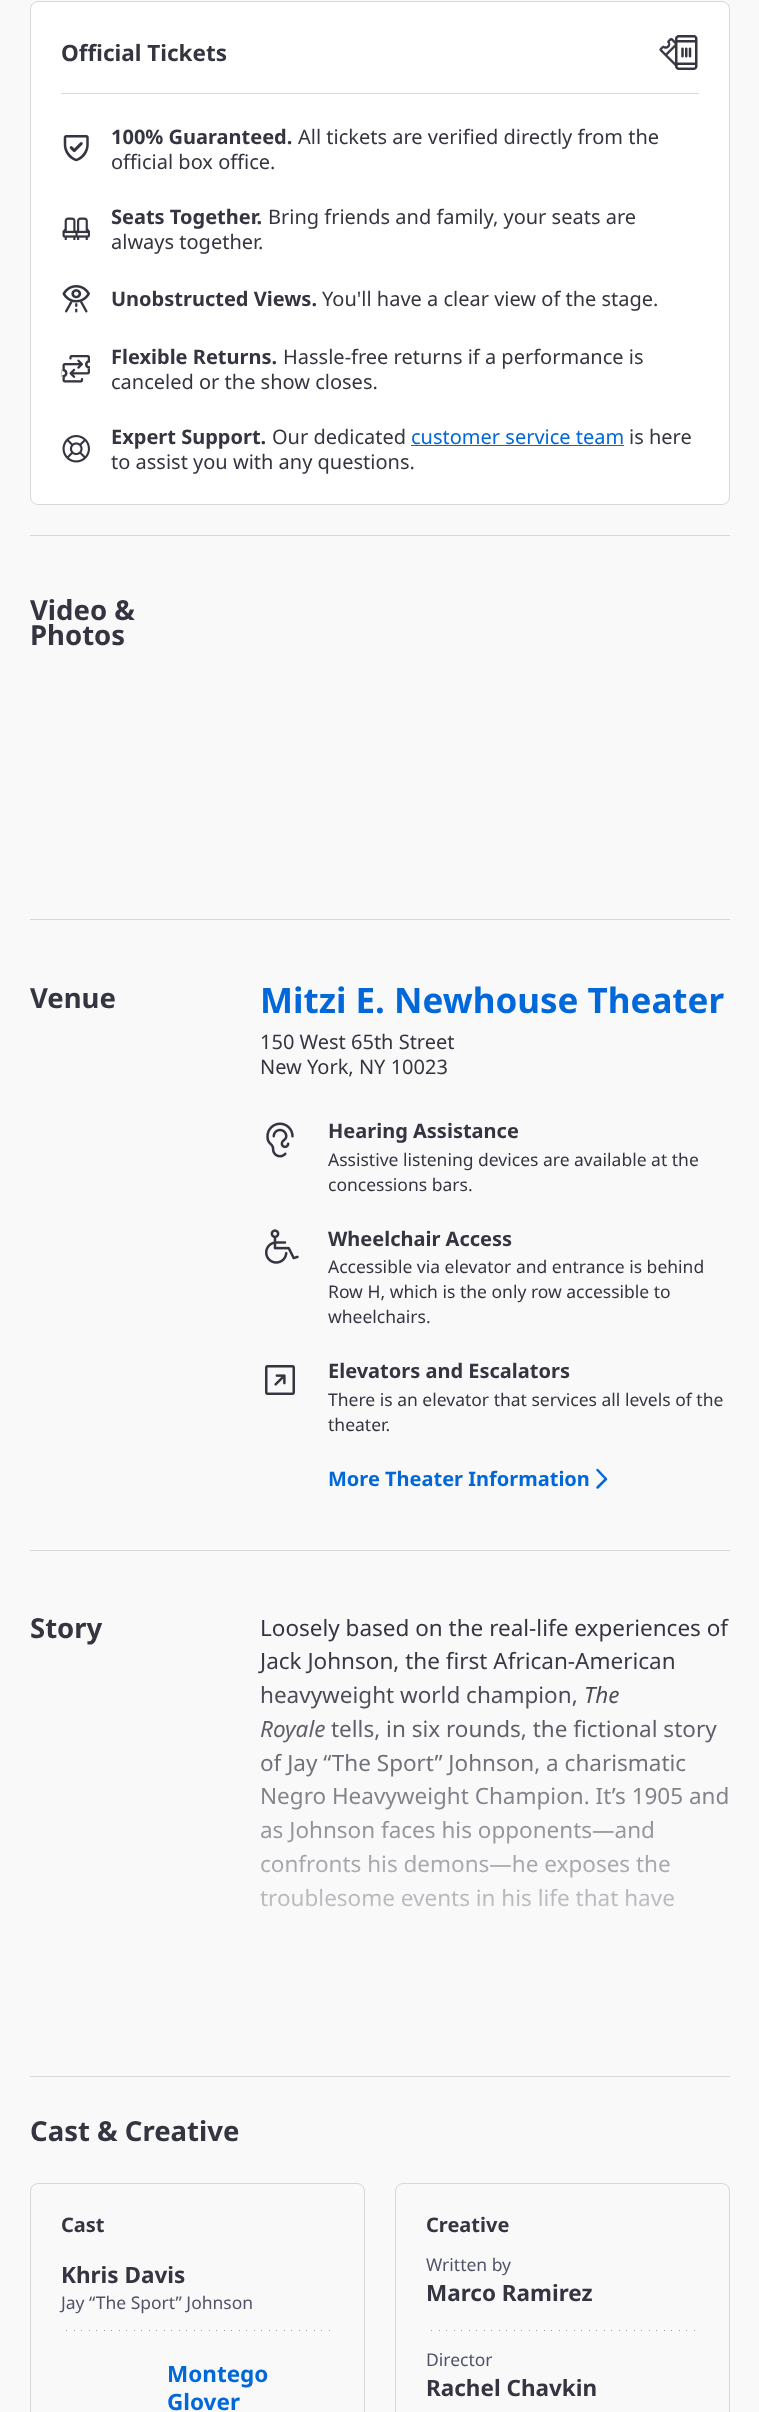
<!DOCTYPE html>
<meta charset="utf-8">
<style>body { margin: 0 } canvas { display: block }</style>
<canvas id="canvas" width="759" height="2412"></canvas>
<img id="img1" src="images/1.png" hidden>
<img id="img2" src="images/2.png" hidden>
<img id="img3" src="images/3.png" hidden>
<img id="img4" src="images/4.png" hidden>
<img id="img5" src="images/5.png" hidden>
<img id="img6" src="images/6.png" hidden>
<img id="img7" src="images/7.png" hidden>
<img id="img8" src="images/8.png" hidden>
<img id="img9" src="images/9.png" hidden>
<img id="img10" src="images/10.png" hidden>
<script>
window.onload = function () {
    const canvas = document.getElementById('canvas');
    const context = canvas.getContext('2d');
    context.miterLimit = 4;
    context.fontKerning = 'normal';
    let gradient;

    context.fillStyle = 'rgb(249, 249, 250)';
    context.fillRect(0, 0, 759, 2412);
    context.fillStyle = 'rgb(215, 216, 221)';
    context.fillRect(30, 535, 700, 1);
    context.fillStyle = 'rgb(255, 255, 255)';
    context.beginPath();
    context.roundRect(30.5, 1.5, 699, 503, 7.5);
    context.fill();
    context.strokeStyle = 'rgb(215, 216, 221)';
    context.stroke();
    context.fillStyle = 'rgb(215, 216, 221)';
    context.fillRect(61, 93, 638, 1);
    context.drawImage(document.getElementById('img1'), 659, 35, 39, 35);
    context.drawImage(document.getElementById('img2'), 63, 135, 26, 27);
    context.drawImage(document.getElementById('img3'), 62, 217, 28, 23);
    context.drawImage(document.getElementById('img4'), 62, 285, 28, 28);
    context.drawImage(document.getElementById('img5'), 61, 355, 29, 28);
    context.drawImage(document.getElementById('img6'), 62, 435, 28, 28);
    context.fillStyle = 'rgb(0, 104, 217)';
    context.fillRect(411, 445, 213, 1);
    context.fillStyle = 'rgb(215, 216, 221)';
    context.fillRect(30, 919, 700, 1);
    context.fillRect(30, 1550, 700, 1);
    context.drawImage(document.getElementById('img7'), 266, 1122, 28, 36);
    context.drawImage(document.getElementById('img8'), 265, 1229, 34, 35);
    context.drawImage(document.getElementById('img9'), 265, 1365, 30, 30);
    context.beginPath();
    context.moveTo(597.5, 1470);
    context.lineTo(606, 1479);
    context.lineTo(597.5, 1487.5);
    context.strokeStyle = 'rgb(0, 104, 217)';
    context.lineWidth = 2.5;
    context.lineCap = 'round';
    context.lineJoin = 'round';
    context.stroke();
    context.fillRect(30, 2076, 700, 1);
    context.beginPath();
    context.roundRect(30.5, 2183.5, 334, 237, 7.5);
    context.strokeStyle = 'rgb(215, 216, 221)';
    context.lineWidth = 1;
    context.lineJoin = 'miter';
    context.stroke();
    context.drawImage(document.getElementById('img10'), 66, 2330, 264, 1);
    context.beginPath();
    context.roundRect(395.5, 2183.5, 334, 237, 7.5);
    context.stroke();
    context.drawImage(document.getElementById('img10'), 431, 2330, 264, 1);
    context.font = 'bold 22.5px Noto Sans';
    context.fillStyle = 'rgb(52, 53, 64)';
    context.fillText('Official Tickets', 61, 61);
    context.font = 'bold 20px Noto Sans';
    context.fillText('100% Guaranteed.', 111, 144);
    context.font = '20px Noto Sans';
    context.fillText('All tickets are verified directly from the', 298, 144);
    context.fillText('official box office.', 111, 169);
    context.font = 'bold 20px Noto Sans';
    context.fillText('Seats Together.', 111, 224);
    context.font = '20px Noto Sans';
    context.fillText('Bring friends and family, your seats are', 268, 224);
    context.fillText('always together.', 111, 249);
    context.font = 'bold 20px Noto Sans';
    context.fillText('Unobstructed Views.', 111, 306);
    context.font = '20px Noto Sans';
    context.fillText('You\'ll have a clear view of the stage.', 322, 306);
    context.font = 'bold 20px Noto Sans';
    context.fillText('Flexible Returns.', 111, 364);
    context.font = '20px Noto Sans';
    context.fillText('Hassle-free returns if a performance is', 283, 364);
    context.fillText('canceled or the show closes.', 111, 389);
    context.font = 'bold 20px Noto Sans';
    context.fillText('Expert Support.', 111, 444);
    context.font = '20px Noto Sans';
    context.fillText('Our dedicated', 272, 444);
    context.fillStyle = 'rgb(0, 104, 217)';
    context.fillText('customer service team', 411, 444);
    context.fillStyle = 'rgb(52, 53, 64)';
    context.fillText('is here', 629, 444);
    context.fillText('to assist you with any questions.', 111, 469);
    context.font = 'bold 27.5px Noto Sans';
    context.fillText('Video &', 30, 620);
    context.fillText('Photos', 30, 645);
    context.fillText('Venue', 30, 1008);
    context.font = 'bold 35px Noto Sans';
    context.fillStyle = 'rgb(0, 104, 217)';
    context.fillText('Mitzi E. Newhouse Theater', 260, 1013);
    context.font = '20px Noto Sans';
    context.fillStyle = 'rgb(52, 53, 64)';
    context.fillText('150 West 65th Street', 260, 1049);
    context.fillText('New York, NY 10023', 260, 1074);
    context.font = 'bold 20px Noto Sans';
    context.fillText('Hearing Assistance', 328, 1138);
    context.font = '17.5px Noto Sans';
    context.fillText('Assistive listening devices are available at the', 328, 1166);
    context.fillText('concessions bars.', 328, 1191);
    context.font = 'bold 20px Noto Sans';
    context.fillText('Wheelchair Access', 328, 1246);
    context.font = '17.5px Noto Sans';
    context.fillText('Accessible via elevator and entrance is behind', 328, 1273);
    context.fillText('Row H, which is the only row accessible to', 328, 1298);
    context.fillText('wheelchairs.', 328, 1323);
    context.font = 'bold 20px Noto Sans';
    context.fillText('Elevators and Escalators', 328, 1378);
    context.font = '17.5px Noto Sans';
    context.fillText('There is an elevator that services all levels of the', 328, 1406);
    context.fillText('theater.', 328, 1431);
    context.font = 'bold 20px Noto Sans';
    context.fillStyle = 'rgb(0, 104, 217)';
    context.fillText('More Theater Information', 328, 1486);
    context.font = 'bold 27.5px Noto Sans';
    context.fillStyle = 'rgb(52, 53, 64)';
    context.fillText('Story', 30, 1638);
    context.font = '22.5px Noto Sans';
    context.fillText('Loosely based on the real-life experiences of', 260, 1636);
    context.fillText('Jack Johnson, the first African-American', 260, 1669);
    context.fillText('heavyweight world champion,', 260, 1703);
    context.font = 'italic 22.5px Noto Sans';
    context.fillText('The', 584, 1703);
    context.fillText('Royale', 260, 1737);
    context.font = '22.5px Noto Sans';
    context.fillText('tells, in six rounds, the fictional story', 331, 1737);
    context.fillText('of Jay “The Sport” Johnson, a charismatic', 260, 1771);
    context.fillText('Negro Heavyweight Champion. It’s 1905 and', 260, 1804);
    context.fillText('as Johnson faces his opponents—and', 260, 1838);
    context.fillText('confronts his demons—he exposes the', 260, 1872);
    context.fillText('troublesome events in his life that have', 260, 1906);
    gradient = context.createLinearGradient(495, 1611, 495, 2016);
    gradient.addColorStop(0.1, 'rgba(249, 249, 250, 0)');
    gradient.addColorStop(1, 'rgb(249, 249, 250)');
    context.fillStyle = gradient;
    context.fillRect(260, 1659, 468, 248);
    context.font = 'bold 27.5px Noto Sans';
    context.fillStyle = 'rgb(52, 53, 64)';
    context.fillText('Cast & Creative', 30, 2141);
    context.font = 'bold 20px Noto Sans';
    context.fillText('Cast', 61, 2232);
    context.font = 'bold 22.5px Noto Sans';
    context.fillText('Khris Davis', 61, 2283);
    context.font = '17.5px Noto Sans';
    context.fillStyle = 'rgb(80, 83, 104)';
    context.fillText('Jay “The Sport” Johnson', 61, 2309);
    context.font = 'bold 22.5px Noto Sans';
    context.fillStyle = 'rgb(0, 104, 217)';
    context.fillText('Montego', 167, 2382);
    context.fillText('Glover', 167, 2410);
    context.font = 'bold 20px Noto Sans';
    context.fillStyle = 'rgb(52, 53, 64)';
    context.fillText('Creative', 426, 2232);
    context.font = '17.5px Noto Sans';
    context.fillStyle = 'rgb(80, 83, 104)';
    context.fillText('Written by', 426, 2271);
    context.font = 'bold 22.5px Noto Sans';
    context.fillStyle = 'rgb(52, 53, 64)';
    context.fillText('Marco Ramirez', 426, 2301);
    context.font = '17.5px Noto Sans';
    context.fillStyle = 'rgb(80, 83, 104)';
    context.fillText('Director', 426, 2366);
    context.font = 'bold 22.5px Noto Sans';
    context.fillStyle = 'rgb(52, 53, 64)';
    context.fillText('Rachel Chavkin', 426, 2396);
};
</script>
